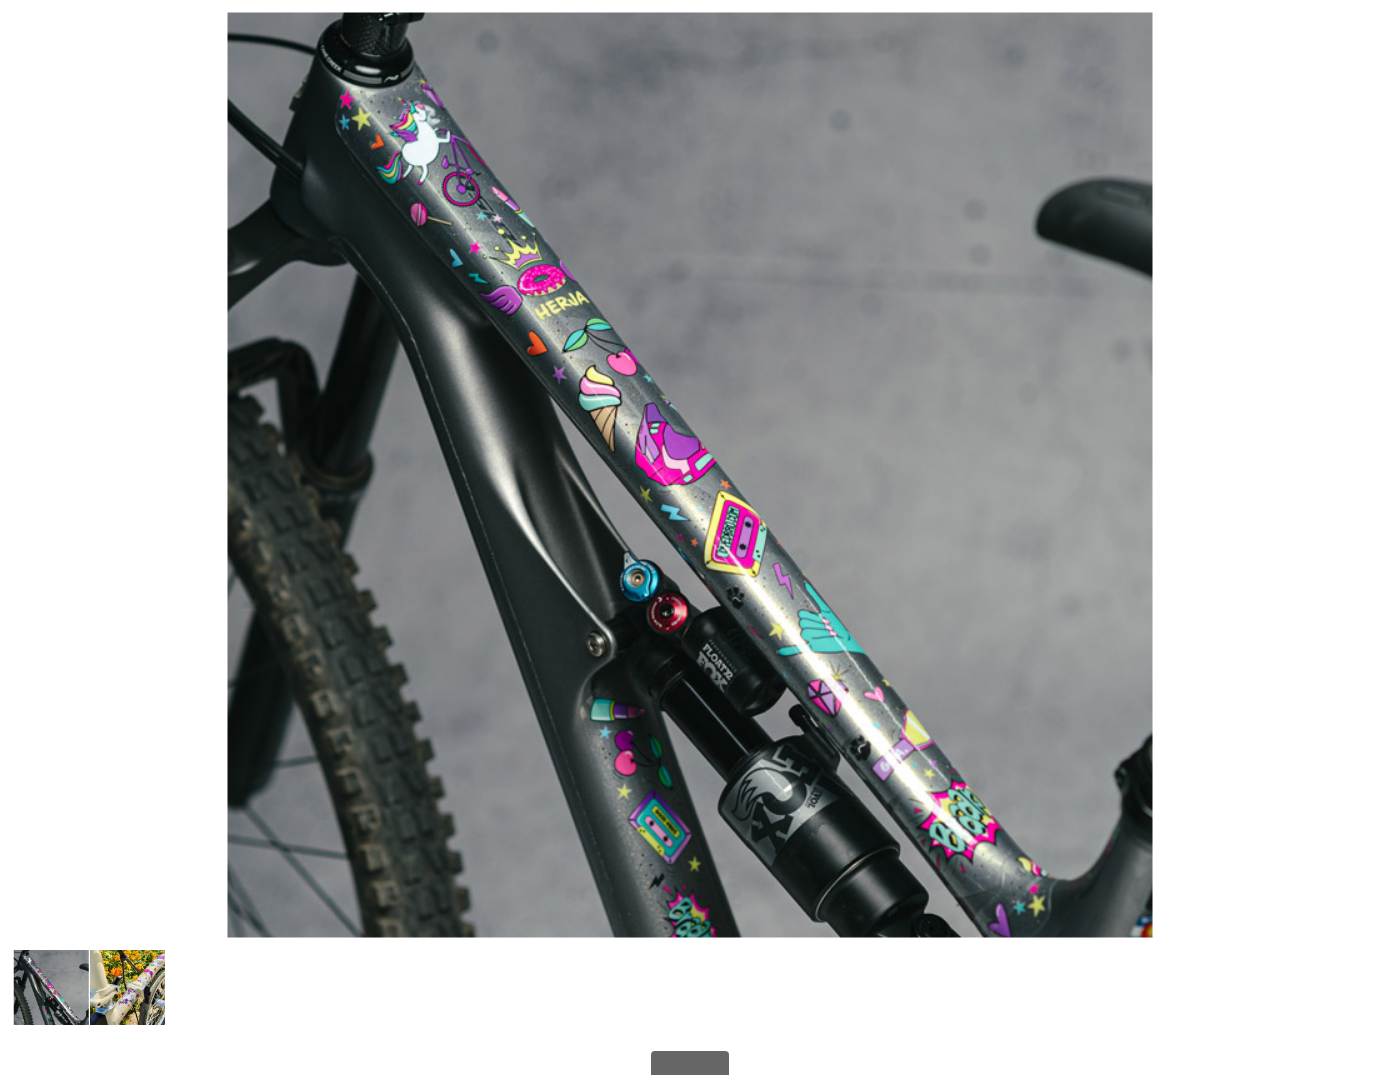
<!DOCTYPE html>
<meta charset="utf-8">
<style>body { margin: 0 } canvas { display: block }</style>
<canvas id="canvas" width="1380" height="1075"></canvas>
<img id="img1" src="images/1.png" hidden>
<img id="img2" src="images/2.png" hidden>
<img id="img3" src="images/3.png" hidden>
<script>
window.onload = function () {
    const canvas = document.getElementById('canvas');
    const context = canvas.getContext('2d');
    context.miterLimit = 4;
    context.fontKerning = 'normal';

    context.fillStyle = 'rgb(255, 255, 255)';
    context.fillRect(0, 0, 1380, 1075);
    context.drawImage(document.getElementById('img1'), 227, 12, 926, 926);
    context.drawImage(document.getElementById('img2'), 13, 950, 76, 75);
    context.drawImage(document.getElementById('img3'), 90, 950, 75, 75);
    context.fillStyle = 'rgb(102, 102, 102)';
    context.beginPath();
    context.roundRect(651, 1051, 78, 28, 4);
    context.fill();
};
</script>
